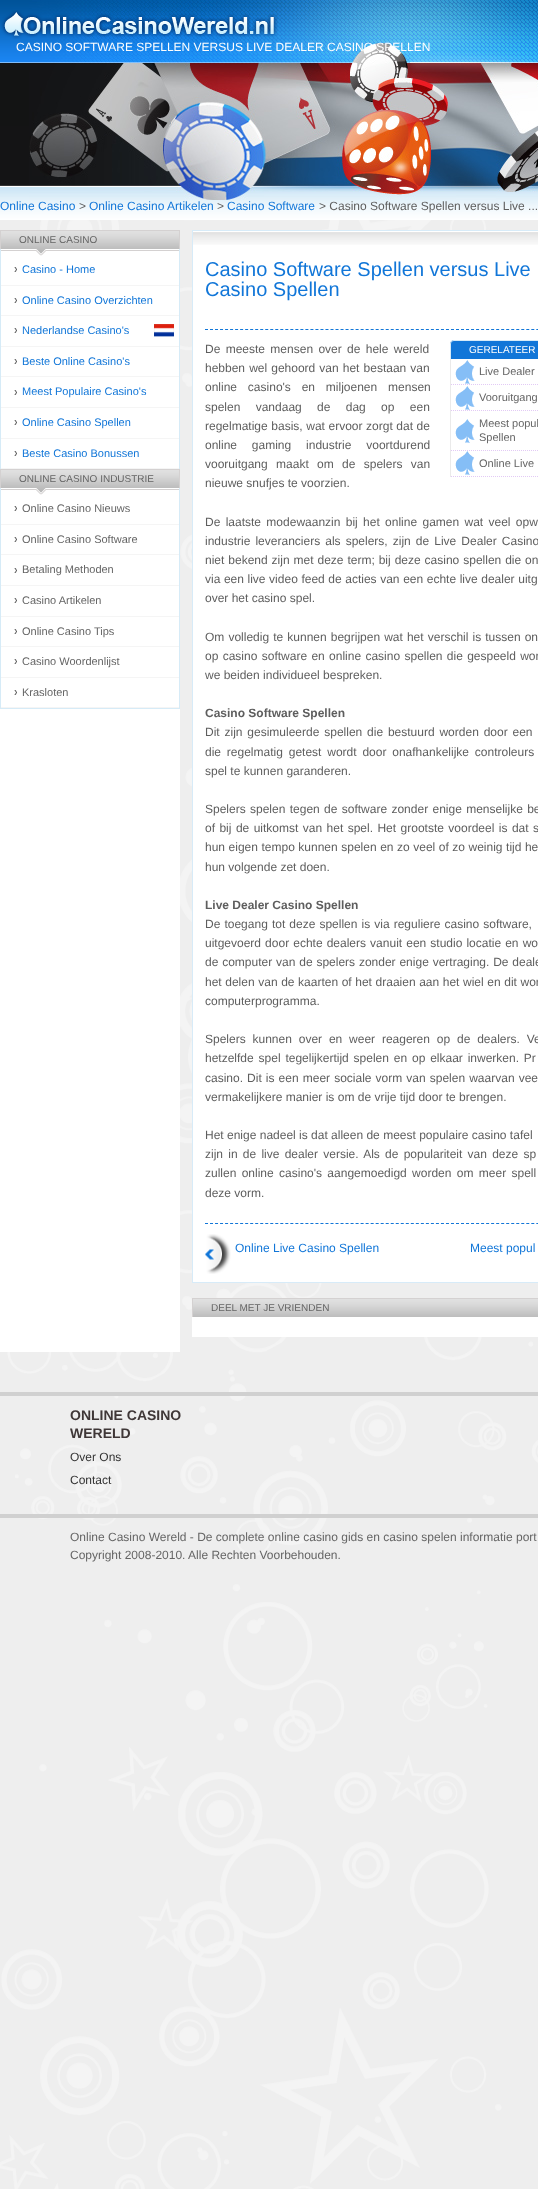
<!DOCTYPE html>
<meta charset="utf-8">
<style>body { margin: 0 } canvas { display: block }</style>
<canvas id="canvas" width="538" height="2189"></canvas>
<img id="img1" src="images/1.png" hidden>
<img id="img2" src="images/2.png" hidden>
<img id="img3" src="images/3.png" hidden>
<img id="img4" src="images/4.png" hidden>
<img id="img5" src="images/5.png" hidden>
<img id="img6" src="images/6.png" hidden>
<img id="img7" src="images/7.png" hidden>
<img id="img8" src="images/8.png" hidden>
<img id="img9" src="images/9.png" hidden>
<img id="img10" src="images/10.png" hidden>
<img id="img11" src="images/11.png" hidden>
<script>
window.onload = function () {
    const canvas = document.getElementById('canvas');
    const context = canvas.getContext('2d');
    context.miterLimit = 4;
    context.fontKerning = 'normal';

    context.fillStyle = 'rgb(255, 255, 255)';
    context.fillRect(0, 0, 538, 2189);
    context.drawImage(document.getElementById('img1'), 0, 0, 538, 2189);
    context.drawImage(document.getElementById('img2'), 29, 0, 509, 200);
    context.drawImage(document.getElementById('img3'), 1, 10, 277, 29);
    context.fillRect(1, 256, 178, 212);
    context.drawImage(document.getElementById('img4'), 1, 231, 178, 18);
    context.fillStyle = 'rgb(212, 209, 209)';
    context.fillRect(0, 230, 180, 1);
    context.fillRect(179, 230, 1, 19);
    context.fillRect(0, 230, 1, 19);
    context.drawImage(document.getElementById('img5'), 1, 249, 178, 7);
    context.fillStyle = 'rgb(214, 235, 247)';
    context.fillRect(179, 249, 1, 220);
    context.fillRect(0, 249, 1, 220);
    context.fillStyle = 'rgb(245, 245, 245)';
    context.fillRect(1, 285, 178, 1);
    context.drawImage(document.getElementById('img6'), 14, 267, 3, 5);
    context.fillRect(1, 315, 178, 1);
    context.drawImage(document.getElementById('img6'), 14, 298, 3, 5);
    context.fillRect(1, 346, 178, 1);
    context.drawImage(document.getElementById('img6'), 14, 328, 3, 5);
    context.drawImage(document.getElementById('img7'), 154, 324, 20, 13);
    context.fillRect(1, 376, 178, 1);
    context.drawImage(document.getElementById('img6'), 14, 359, 3, 5);
    context.fillRect(1, 407, 178, 1);
    context.drawImage(document.getElementById('img6'), 14, 390, 3, 5);
    context.fillRect(1, 438, 178, 1);
    context.drawImage(document.getElementById('img6'), 14, 420, 3, 5);
    context.fillRect(1, 468, 178, 1);
    context.drawImage(document.getElementById('img6'), 14, 451, 3, 5);
    context.fillStyle = 'rgb(255, 255, 255)';
    context.fillRect(0, 495, 180, 857);
    context.drawImage(document.getElementById('img4'), 1, 470, 178, 18);
    context.fillStyle = 'rgb(212, 209, 209)';
    context.fillRect(0, 469, 180, 1);
    context.fillRect(179, 469, 1, 19);
    context.fillRect(0, 469, 1, 19);
    context.drawImage(document.getElementById('img5'), 1, 488, 178, 7);
    context.fillStyle = 'rgb(214, 235, 247)';
    context.fillRect(179, 488, 1, 221);
    context.fillRect(0, 708, 180, 1);
    context.fillRect(0, 488, 1, 221);
    context.fillStyle = 'rgb(245, 245, 245)';
    context.fillRect(1, 524, 178, 1);
    context.drawImage(document.getElementById('img6'), 14, 506, 3, 5);
    context.fillRect(1, 554, 178, 1);
    context.drawImage(document.getElementById('img6'), 14, 537, 3, 5);
    context.fillRect(1, 585, 178, 1);
    context.drawImage(document.getElementById('img6'), 14, 568, 3, 5);
    context.fillRect(1, 616, 178, 1);
    context.drawImage(document.getElementById('img6'), 14, 598, 3, 5);
    context.fillRect(1, 646, 178, 1);
    context.drawImage(document.getElementById('img6'), 14, 629, 3, 5);
    context.fillRect(1, 677, 178, 1);
    context.drawImage(document.getElementById('img6'), 14, 659, 3, 5);
    context.fillRect(1, 707, 178, 1);
    context.drawImage(document.getElementById('img6'), 14, 690, 3, 5);
    context.fillStyle = 'rgb(255, 255, 255)';
    context.fillRect(193, 231, 345, 1051);
    context.drawImage(document.getElementById('img8'), 193, 232, 345, 13);
    context.strokeStyle = 'rgb(215, 235, 248)';
    context.strokeRect(192.5, 230.5, 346, 1052);
    context.beginPath();
    context.moveTo(205, 329.5);
    context.lineTo(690, 329.5);
    context.strokeStyle = 'rgb(17, 118, 216)';
    context.setLineDash([3, 2.02]);
    context.stroke();
    context.fillStyle = 'rgb(17, 118, 216)';
    context.beginPath();
    context.moveTo(454, 340);
    context.lineTo(538, 340);
    context.bezierCurveTo(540, 340, 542, 342, 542, 344);
    context.lineTo(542, 359);
    context.lineTo(450, 359);
    context.lineTo(450, 344);
    context.bezierCurveTo(450, 342, 452, 340, 454, 340);
    context.closePath();
    context.fill();
    context.fillStyle = 'rgb(215, 235, 248)';
    context.beginPath();
    context.moveTo(454, 340);
    context.lineTo(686, 340);
    context.bezierCurveTo(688, 340, 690, 342, 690, 344);
    context.lineTo(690, 359);
    context.lineTo(450, 359);
    context.lineTo(450, 344);
    context.bezierCurveTo(450, 342, 452, 340, 454, 340);
    context.closePath();
    context.moveTo(454, 341);
    context.lineTo(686, 341);
    context.bezierCurveTo(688, 341, 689, 342, 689, 344);
    context.lineTo(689, 359);
    context.lineTo(451, 359);
    context.lineTo(451, 344);
    context.bezierCurveTo(451, 342, 452, 341, 454, 341);
    context.closePath();
    context.fill('evenodd');
    context.fillStyle = 'rgb(234, 234, 234)';
    context.fillRect(450, 359, 1, 118);
    context.drawImage(document.getElementById('img9'), 455, 360, 20, 24);
    context.beginPath();
    context.moveTo(451, 384.5);
    context.lineTo(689, 384.5);
    context.strokeStyle = 'rgb(226, 202, 245)';
    context.setLineDash([1, 1]);
    context.stroke();
    context.drawImage(document.getElementById('img9'), 455, 386, 20, 24);
    context.beginPath();
    context.moveTo(451, 410.5);
    context.lineTo(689, 410.5);
    context.stroke();
    context.drawImage(document.getElementById('img9'), 455, 419, 20, 24);
    context.beginPath();
    context.moveTo(451, 450.5);
    context.lineTo(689, 450.5);
    context.stroke();
    context.drawImage(document.getElementById('img9'), 455, 451, 20, 24);
    context.beginPath();
    context.moveTo(451, 476.5);
    context.lineTo(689, 476.5);
    context.stroke();
    context.beginPath();
    context.moveTo(205, 1223.5);
    context.lineTo(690, 1223.5);
    context.strokeStyle = 'rgb(17, 118, 216)';
    context.setLineDash([3, 2.02]);
    context.stroke();
    context.drawImage(document.getElementById('img10'), 205, 1234, 26, 40);
    context.fillStyle = 'rgb(255, 255, 255)';
    context.fillRect(192, 1317, 346, 20);
    context.drawImage(document.getElementById('img11'), 193, 1299, 345, 18);
    context.fillStyle = 'rgb(212, 209, 209)';
    context.fillRect(192, 1298, 346, 1);
    context.fillRect(192, 1298, 1, 19);
    context.fillStyle = 'rgb(208, 208, 208)';
    context.fillRect(0, 1392, 538, 4);
    context.fillRect(0, 1514, 538, 4);
    context.font = '12px Liberation Sans';
    context.fillStyle = 'rgb(254, 254, 254)';
    context.fillText('CASINO SOFTWARE SPELLEN VERSUS LIVE DEALER CASINO SPELLEN', 16, 51);
    context.fillStyle = 'rgb(17, 118, 216)';
    context.fillText('Online Casino', 0, 210);
    context.fillStyle = 'rgb(94, 94, 94)';
    context.fillText('>', 79, 210);
    context.fillStyle = 'rgb(17, 118, 216)';
    context.fillText('Online Casino Artikelen', 89, 210);
    context.fillStyle = 'rgb(94, 94, 94)';
    context.fillText('>', 217, 210);
    context.fillStyle = 'rgb(17, 118, 216)';
    context.fillText('Casino Software', 227, 210);
    context.fillStyle = 'rgb(94, 94, 94)';
    context.fillText('> Casino Software Spellen versus Live ...', 319, 210);
    context.font = '10px Liberation Sans';
    context.fillStyle = 'rgb(101, 101, 101)';
    context.fillText('ONLINE CASINO', 19, 243);
    context.font = '11px Liberation Sans';
    context.fillStyle = 'rgb(17, 118, 216)';
    context.fillText('Casino - Home', 22, 273);
    context.fillText('Online Casino Overzichten', 22, 304);
    context.fillText('Nederlandse Casino\'s', 22, 334);
    context.fillText('Beste Online Casino\'s', 22, 365);
    context.fillText('Meest Populaire Casino\'s', 22, 395);
    context.fillText('Online Casino Spellen', 22, 426);
    context.fillText('Beste Casino Bonussen', 22, 457);
    context.font = '10px Liberation Sans';
    context.fillStyle = 'rgb(101, 101, 101)';
    context.fillText('ONLINE CASINO INDUSTRIE', 19, 482);
    context.font = '11px Liberation Sans';
    context.fillText('Online Casino Nieuws', 22, 512);
    context.fillText('Online Casino Software', 22, 543);
    context.fillText('Betaling Methoden', 22, 573);
    context.fillText('Casino Artikelen', 22, 604);
    context.fillText('Online Casino Tips', 22, 635);
    context.fillText('Casino Woordenlijst', 22, 665);
    context.fillText('Krasloten', 22, 696);
    context.font = '20px Liberation Sans';
    context.fillStyle = 'rgb(17, 118, 216)';
    context.fillText('Casino Software Spellen versus Live', 205, 276);
    context.fillText('Casino Spellen', 205, 296);
    context.wordSpacing = '2px';
    context.font = '12px Liberation Sans';
    context.fillStyle = 'rgb(94, 94, 94)';
    context.fillText('De meeste mensen over de hele wereld', 205, 353);
    context.wordSpacing = '0.75px';
    context.fillText('hebben wel gehoord van het bestaan van', 205, 372);
    context.wordSpacing = '7.5px';
    context.fillText('online casino\'s en miljoenen mensen', 205, 391);
    context.wordSpacing = '12px';
    context.fillText('spelen vandaag de dag op een', 205, 411);
    context.wordSpacing = '0.25px';
    context.fillText('regelmatige basis, wat ervoor zorgt dat de', 205, 430);
    context.wordSpacing = '11.5px';
    context.fillText('online gaming industrie voortdurend', 205, 449);
    context.wordSpacing = '5px';
    context.fillText('vooruitgang maakt om de spelers van', 205, 468);
    context.wordSpacing = '0px';
    context.fillText('nieuwe snufjes te voorzien.', 205, 487);
    context.font = '10px Liberation Sans';
    context.fillStyle = 'rgb(254, 254, 254)';
    context.fillText('GERELATEER', 469, 353);
    context.font = '11px Liberation Sans';
    context.fillStyle = 'rgb(101, 101, 101)';
    context.fillText('Live Dealer', 479, 375);
    context.fillText('Vooruitgang', 479, 401);
    context.fillText('Meest popul', 479, 427);
    context.fillText('Spellen', 479, 441);
    context.fillText('Online Live', 479, 467);
    context.wordSpacing = '2px';
    context.font = '12px Liberation Sans';
    context.fillStyle = 'rgb(94, 94, 94)';
    context.fillText('De laatste modewaanzin bij het online gamen wat veel opw', 205, 526);
    context.wordSpacing = '1.75px';
    context.fillText('industrie leveranciers als spelers, zijn de Live Dealer Casino', 205, 545);
    context.wordSpacing = '0.6px';
    context.fillText('niet bekend zijn met deze term; bij deze casino spellen die on', 205, 564);
    context.wordSpacing = '0.25px';
    context.fillText('via een live video feed de acties van een echte live dealer uitg', 205, 583);
    context.wordSpacing = '0px';
    context.fillText('over het casino spel.', 205, 602);
    context.wordSpacing = '0.75px';
    context.fillText('Om volledig te kunnen begrijpen wat het verschil is tussen on', 205, 641);
    context.wordSpacing = '1px';
    context.fillText('op casino software en online casino spellen die gespeeld wor', 205, 660);
    context.wordSpacing = '0px';
    context.fillText('we beiden individueel bespreken.', 205, 679);
    context.font = 'bold 12px Liberation Sans';
    context.fillText('Casino Software Spellen', 205, 717);
    context.wordSpacing = '1.5px';
    context.font = '12px Liberation Sans';
    context.fillText('Dit zijn gesimuleerde spellen die bestuurd worden door een', 205, 736);
    context.wordSpacing = '2.5px';
    context.fillText('die regelmatig getest wordt door onafhankelijke controleurs', 205, 756);
    context.wordSpacing = '0px';
    context.fillText('spel te kunnen garanderen.', 205, 775);
    context.wordSpacing = '1px';
    context.fillText('Spelers spelen tegen de software zonder enige menselijke be', 205, 813);
    context.wordSpacing = '1.1px';
    context.fillText('of bij de uitkomst van het spel. Het grootste voordeel is dat s', 205, 832);
    context.wordSpacing = '0.2px';
    context.fillText('hun eigen tempo kunnen spelen en zo veel of zo weinig tijd he', 205, 851);
    context.wordSpacing = '0px';
    context.fillText('hun volgende zet doen.', 205, 871);
    context.font = 'bold 12px Liberation Sans';
    context.fillText('Live Dealer Casino Spellen', 205, 909);
    context.wordSpacing = '0.75px';
    context.font = '12px Liberation Sans';
    context.fillText('De toegang tot deze spellen is via reguliere casino software,', 205, 928);
    context.fillText('uitgevoerd door echte dealers vanuit een studio locatie en wo', 205, 947);
    context.wordSpacing = '0.5px';
    context.fillText('de computer van de spelers zonder enige vertraging. De deale', 205, 966);
    context.wordSpacing = '0.25px';
    context.fillText('het delen van de kaarten of het draaien aan het wiel en dit wor', 205, 986);
    context.wordSpacing = '0px';
    context.fillText('computerprogramma.', 205, 1005);
    context.wordSpacing = '3.5px';
    context.fillText('Spelers kunnen over en weer reageren op de dealers. Ve', 205, 1043);
    context.wordSpacing = '1.5px';
    context.fillText('hetzelfde spel tegelijkertijd spelen en op elkaar inwerken. Pr', 205, 1062);
    context.wordSpacing = '0.75px';
    context.fillText('casino. Dit is een meer sociale vorm van spelen waarvan vee', 205, 1082);
    context.wordSpacing = '0px';
    context.fillText('vermakelijkere manier is om de vrije tijd door te brengen.', 205, 1101);
    context.fillText('Het enige nadeel is dat alleen de meest populaire casino tafel', 205, 1139);
    context.wordSpacing = '1.9px';
    context.fillText('zijn in de live dealer versie. Als de populariteit van deze sp', 205, 1158);
    context.wordSpacing = '2px';
    context.fillText('zullen online casino\'s aangemoedigd worden om meer spell', 205, 1177);
    context.wordSpacing = '0px';
    context.fillText('deze vorm.', 205, 1197);
    context.fillStyle = 'rgb(17, 118, 216)';
    context.fillText('Online Live Casino Spellen', 235, 1252);
    context.fillText('Meest popul', 470, 1252);
    context.font = '10px Liberation Sans';
    context.fillStyle = 'rgb(101, 101, 101)';
    context.fillText('DEEL MET JE VRIENDEN', 211, 1311);
    context.font = 'bold 14px Liberation Sans';
    context.fillStyle = 'rgb(63, 55, 55)';
    context.fillText('ONLINE CASINO', 70, 1420);
    context.fillText('WERELD', 70, 1438);
    context.font = '12px Liberation Sans';
    context.fillStyle = 'rgb(51, 51, 51)';
    context.fillText('Over Ons', 70, 1461);
    context.fillText('Contact', 70, 1484);
    context.fillStyle = 'rgb(101, 101, 101)';
    context.fillText('Online Casino Wereld - De complete online casino gids en casino spelen informatie port', 70, 1541);
    context.fillText('Copyright 2008-2010. Alle Rechten Voorbehouden.', 70, 1559);
};
</script>
